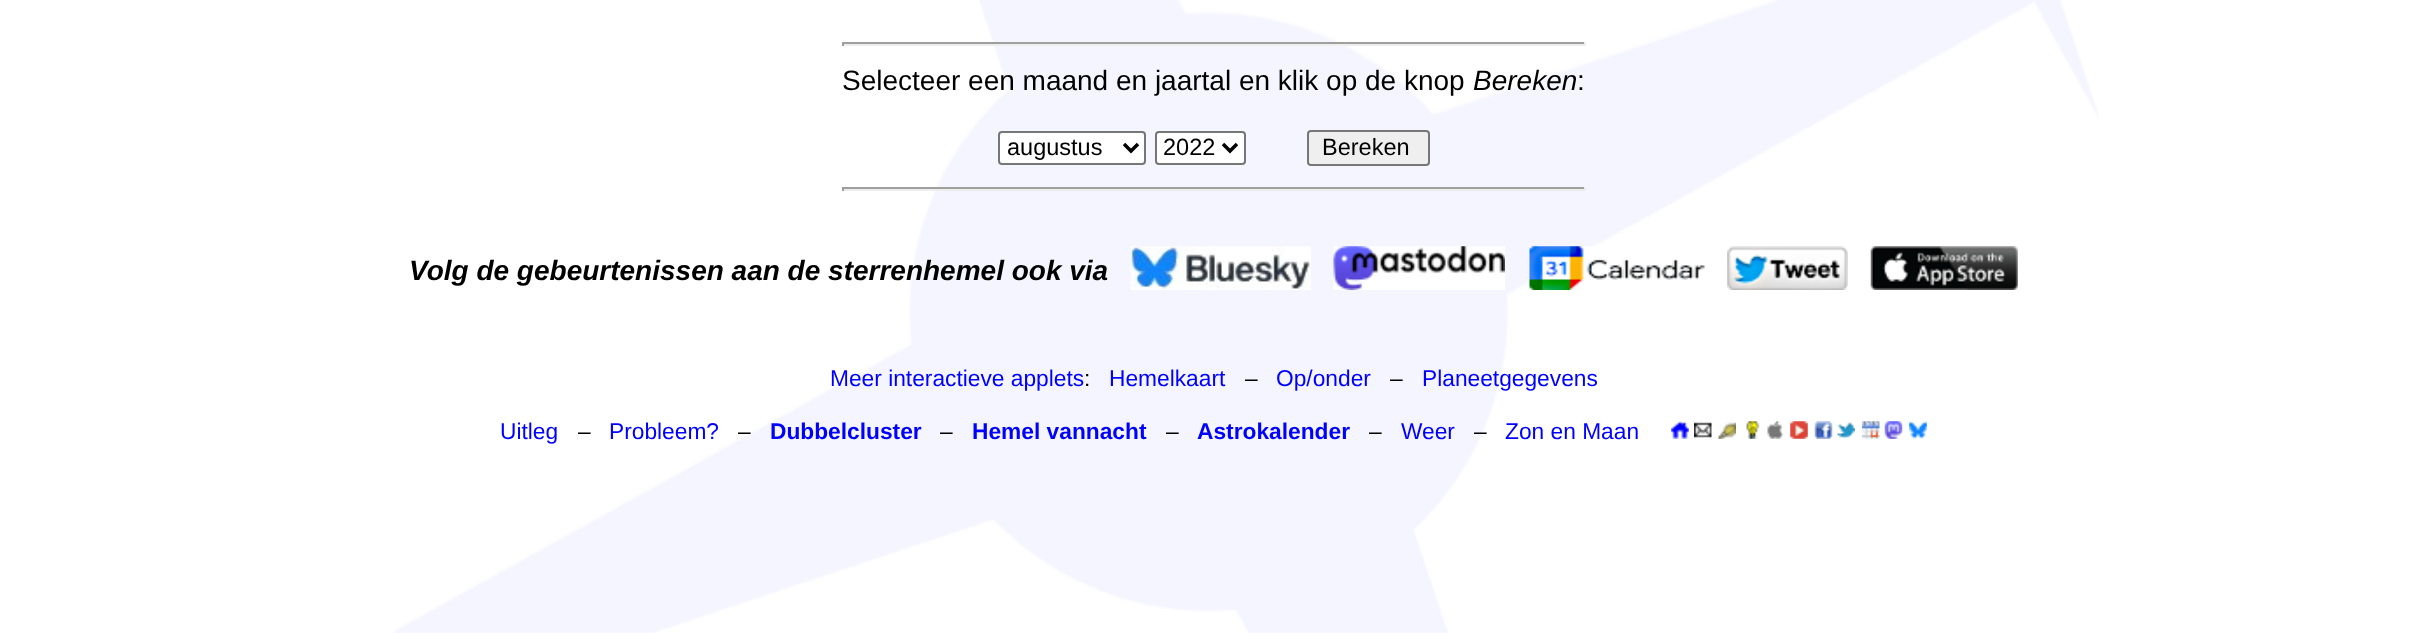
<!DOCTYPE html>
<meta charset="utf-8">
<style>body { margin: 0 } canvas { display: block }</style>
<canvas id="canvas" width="2426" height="633"></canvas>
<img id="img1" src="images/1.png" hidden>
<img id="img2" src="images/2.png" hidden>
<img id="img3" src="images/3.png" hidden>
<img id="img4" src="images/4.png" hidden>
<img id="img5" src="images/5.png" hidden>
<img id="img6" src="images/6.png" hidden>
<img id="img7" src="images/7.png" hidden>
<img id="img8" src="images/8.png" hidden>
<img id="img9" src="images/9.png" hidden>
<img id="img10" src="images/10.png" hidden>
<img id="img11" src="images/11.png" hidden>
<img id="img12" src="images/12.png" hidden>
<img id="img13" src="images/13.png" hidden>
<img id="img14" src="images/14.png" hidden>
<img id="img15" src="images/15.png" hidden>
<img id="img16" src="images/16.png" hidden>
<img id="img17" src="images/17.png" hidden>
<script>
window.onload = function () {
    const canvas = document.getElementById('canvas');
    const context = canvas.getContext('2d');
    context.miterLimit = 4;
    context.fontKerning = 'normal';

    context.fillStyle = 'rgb(255, 255, 255)';
    context.fillRect(0, 0, 2426, 633);
    context.drawImage(document.getElementById('img1'), 393, 0, 1706, 633);
    context.fillStyle = 'rgb(159, 159, 159)';
    context.fillRect(842, 42, 744, 2);
    context.fillStyle = 'rgb(238, 238, 238)';
    context.fillRect(1584, 42, 2, 4);
    context.fillRect(842, 44, 744, 2);
    context.fillStyle = 'rgb(159, 159, 159)';
    context.fillRect(842, 42, 2, 4);
    context.fillStyle = 'rgb(255, 255, 255)';
    context.beginPath();
    context.roundRect(999, 132, 146, 32, 3);
    context.fill();
    context.strokeStyle = 'rgb(118, 118, 118)';
    context.lineWidth = 2;
    context.stroke();
    context.beginPath();
    context.moveTo(1124, 144);
    context.lineTo(1131, 151);
    context.lineTo(1138, 144);
    context.strokeStyle = 'rgb(0, 0, 0)';
    context.lineWidth = 3.5;
    context.stroke();
    context.beginPath();
    context.roundRect(1156, 132, 89, 32, 3);
    context.fill();
    context.strokeStyle = 'rgb(118, 118, 118)';
    context.lineWidth = 2;
    context.stroke();
    context.beginPath();
    context.moveTo(1223, 144);
    context.lineTo(1230, 151);
    context.lineTo(1237, 144);
    context.strokeStyle = 'rgb(0, 0, 0)';
    context.lineWidth = 3.5;
    context.stroke();
    context.fillStyle = 'rgb(239, 239, 239)';
    context.beginPath();
    context.roundRect(1308, 131, 121, 34, 3);
    context.fill();
    context.strokeStyle = 'rgb(118, 118, 118)';
    context.lineWidth = 2;
    context.stroke();
    context.fillStyle = 'rgb(159, 159, 159)';
    context.fillRect(842, 187, 744, 2);
    context.fillStyle = 'rgb(238, 238, 238)';
    context.fillRect(1584, 187, 2, 4);
    context.fillRect(842, 189, 744, 2);
    context.fillStyle = 'rgb(159, 159, 159)';
    context.fillRect(842, 187, 2, 4);
    context.drawImage(document.getElementById('img2'), 1130, 246, 181, 44);
    context.drawImage(document.getElementById('img3'), 1333, 246, 172, 44);
    context.drawImage(document.getElementById('img4'), 1529, 246, 176, 44);
    context.drawImage(document.getElementById('img5'), 1727, 246, 121, 44);
    context.drawImage(document.getElementById('img6'), 1870, 246, 148, 44);
    context.drawImage(document.getElementById('img7'), 1671, 421, 18, 18);
    context.drawImage(document.getElementById('img8'), 1694, 422, 18, 16);
    context.drawImage(document.getElementById('img9'), 1718, 422, 18, 17);
    context.drawImage(document.getElementById('img10'), 1746, 421, 14, 18);
    context.drawImage(document.getElementById('img11'), 1767, 421, 17, 18);
    context.drawImage(document.getElementById('img12'), 1790, 421, 18, 18);
    context.drawImage(document.getElementById('img13'), 1814, 421, 19, 18);
    context.drawImage(document.getElementById('img14'), 1837, 422, 18, 17);
    context.drawImage(document.getElementById('img15'), 1862, 421, 18, 18);
    context.drawImage(document.getElementById('img16'), 1884, 421, 19, 18);
    context.drawImage(document.getElementById('img17'), 1909, 421, 18, 18);
    context.font = '28px Liberation Sans';
    context.fillStyle = 'rgb(0, 0, 0)';
    context.fillText('Selecteer een maand en jaartal en klik op de knop', 842, 90);
    context.font = 'italic 28px Liberation Sans';
    context.fillText('Bereken', 1473, 90);
    context.font = '28px Liberation Sans';
    context.fillText(':', 1577, 90);
    context.font = '23.5px Liberation Sans';
    context.fillText('augustus', 1007, 155);
    context.fillText('2022', 1163, 155);
    context.fillText('Bereken', 1322, 155);
    context.font = 'italic bold 28px Liberation Sans';
    context.fillText('Volg de gebeurtenissen aan de sterrenhemel ook via', 409, 280);
    context.font = '22.75px Liberation Sans';
    context.fillStyle = 'rgb(0, 0, 255)';
    context.fillText('Meer interactieve applets', 830, 386);
    context.fillStyle = 'rgb(0, 0, 0)';
    context.fillText(':', 1084, 386);
    context.fillStyle = 'rgb(0, 0, 255)';
    context.fillText('Hemelkaart', 1109, 386);
    context.fillStyle = 'rgb(0, 0, 0)';
    context.fillText('–', 1245, 386);
    context.fillStyle = 'rgb(0, 0, 255)';
    context.fillText('Op/onder', 1276, 386);
    context.fillStyle = 'rgb(0, 0, 0)';
    context.fillText('–', 1390, 386);
    context.fillStyle = 'rgb(0, 0, 255)';
    context.fillText('Planeetgegevens', 1422, 386);
    context.fillText('Uitleg', 500, 439);
    context.fillStyle = 'rgb(0, 0, 0)';
    context.fillText('–', 578, 439);
    context.fillStyle = 'rgb(0, 0, 255)';
    context.fillText('Probleem?', 609, 439);
    context.fillStyle = 'rgb(0, 0, 0)';
    context.fillText('–', 738, 439);
    context.font = 'bold 22.75px Liberation Sans';
    context.fillStyle = 'rgb(0, 0, 255)';
    context.fillText('Dubbelcluster', 770, 439);
    context.font = '22.75px Liberation Sans';
    context.fillStyle = 'rgb(0, 0, 0)';
    context.fillText('–', 940, 439);
    context.font = 'bold 22.75px Liberation Sans';
    context.fillStyle = 'rgb(0, 0, 255)';
    context.fillText('Hemel vannacht', 972, 439);
    context.font = '22.75px Liberation Sans';
    context.fillStyle = 'rgb(0, 0, 0)';
    context.fillText('–', 1166, 439);
    context.font = 'bold 22.75px Liberation Sans';
    context.fillStyle = 'rgb(0, 0, 255)';
    context.fillText('Astrokalender', 1197, 439);
    context.font = '22.75px Liberation Sans';
    context.fillStyle = 'rgb(0, 0, 0)';
    context.fillText('–', 1369, 439);
    context.fillStyle = 'rgb(0, 0, 255)';
    context.fillText('Weer', 1401, 439);
    context.fillStyle = 'rgb(0, 0, 0)';
    context.fillText('–', 1474, 439);
    context.fillStyle = 'rgb(0, 0, 255)';
    context.fillText('Zon en Maan', 1505, 439);
};
</script>
